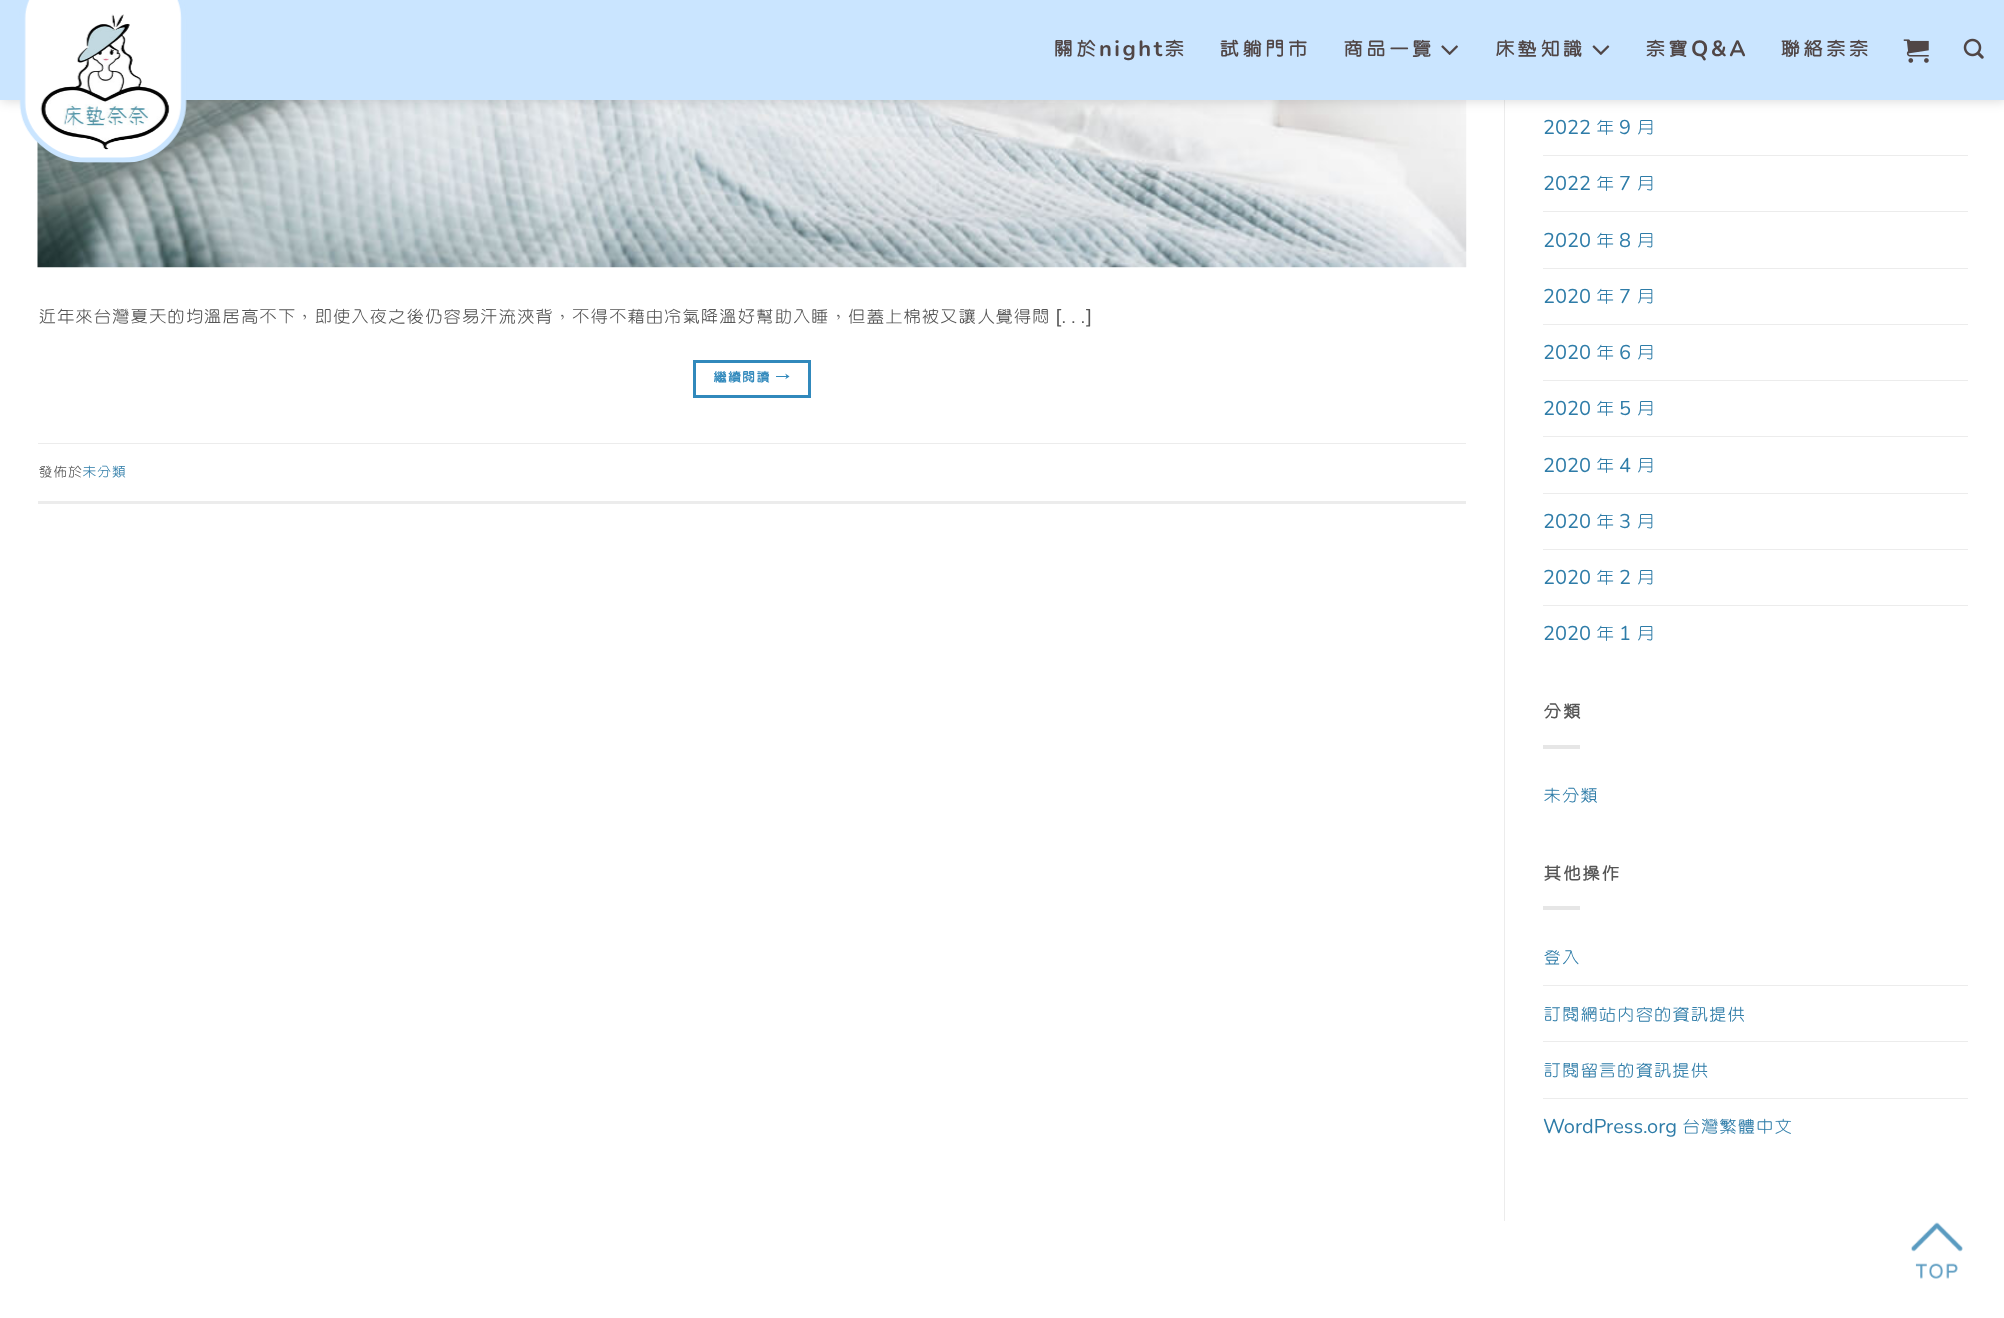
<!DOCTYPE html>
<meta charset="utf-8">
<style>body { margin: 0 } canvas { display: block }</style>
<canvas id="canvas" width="2004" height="1318"></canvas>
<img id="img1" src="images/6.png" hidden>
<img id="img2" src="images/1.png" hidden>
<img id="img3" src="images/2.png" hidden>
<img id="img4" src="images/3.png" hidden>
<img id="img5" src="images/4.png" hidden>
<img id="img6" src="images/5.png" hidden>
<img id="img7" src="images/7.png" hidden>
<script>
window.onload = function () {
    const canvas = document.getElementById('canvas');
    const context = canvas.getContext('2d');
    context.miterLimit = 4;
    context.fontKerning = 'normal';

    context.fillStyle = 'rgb(255, 255, 255)';
    context.fillRect(0, 0, 2004, 1318);
    context.drawImage(document.getElementById('img1'), 37, 100, 1430, 168);
    context.fillStyle = 'rgb(236, 236, 236)';
    context.fillRect(1504, 100, 1, 1121);
    context.fillStyle = 'rgba(0, 0, 0, 0.15)';
    context.filter = 'blur(6px)';
    context.beginPath();
    context.rect(1, 1, 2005, 100);
    context.fill();
    context.filter = 'none';
    context.fillStyle = 'rgb(202, 229, 255)';
    context.fillRect(0, 0, 2004, 100);
    context.drawImage(document.getElementById('img2'), 19, 0, 168, 163);
    context.drawImage(document.getElementById('img3'), 1441, 45, 17, 10);
    context.drawImage(document.getElementById('img4'), 1592, 45, 18, 10);
    context.drawImage(document.getElementById('img5'), 1903, 39, 26, 24);
    context.drawImage(document.getElementById('img6'), 1963, 38, 21, 21);
    context.strokeStyle = 'rgb(49, 137, 188)';
    context.lineWidth = 3;
    context.strokeRect(694.5, 361.5, 115, 35);
    context.fillStyle = 'rgb(236, 236, 236)';
    context.fillRect(38, 443, 1428, 1);
    context.fillRect(38, 501, 1428, 3);
    context.fillRect(1543, 155, 425, 1);
    context.fillRect(1543, 211, 425, 1);
    context.fillRect(1543, 268, 425, 1);
    context.fillRect(1543, 324, 425, 1);
    context.fillRect(1543, 380, 425, 1);
    context.fillRect(1543, 436, 425, 1);
    context.fillRect(1543, 493, 425, 1);
    context.fillRect(1543, 549, 425, 1);
    context.fillRect(1543, 605, 425, 1);
    context.fillStyle = 'rgb(230, 230, 230)';
    context.fillRect(1543, 745, 37, 4);
    context.fillRect(1543, 906, 37, 4);
    context.fillStyle = 'rgb(236, 236, 236)';
    context.fillRect(1543, 985, 425, 1);
    context.fillRect(1543, 1041, 425, 1);
    context.fillRect(1543, 1098, 425, 1);
    context.drawImage(document.getElementById('img7'), 1911, 1222, 52, 57);
    context.letterSpacing = '2.5px';
    context.font = 'bold 22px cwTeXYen';
    context.fillStyle = 'rgb(80, 70, 70)';
    context.fillText('關於', 1053, 56);
    context.font = 'bold 22px Nunito';
    context.fillText('night', 1099, 56);
    context.font = 'bold 22px cwTeXYen';
    context.fillText('奈', 1164, 56);
    context.fillText('試躺門市', 1219, 56);
    context.fillText('商品一覽', 1343, 56);
    context.fillText('床墊知識', 1494, 56);
    context.fillText('奈寶', 1645, 56);
    context.font = 'bold 22px Nunito';
    context.fillText('Q&A', 1691, 56);
    context.font = 'bold 22px cwTeXYen';
    context.fillText('聯絡奈奈', 1780, 56);
    context.letterSpacing = '0px';
    context.font = '500 20px cwTeXYen';
    context.fillStyle = 'rgb(85, 85, 85)';
    context.fillText('近年來台灣夏天的均溫居高不下，即使入夜之後仍容易汗流浹背，不得不藉由冷氣降溫好幫助入睡，但蓋上棉被又讓人覺得悶', 38, 323);
    context.font = '20px Nunito';
    context.fillText('[', 1055, 323);
    context.font = '500 20px cwTeXYen';
    context.fillText('…', 1061, 323);
    context.font = '20px Nunito';
    context.fillText(']', 1086, 323);
    context.letterSpacing = '0.5px';
    context.font = 'bold 15px cwTeXYen';
    context.fillStyle = 'rgb(49, 137, 188)';
    context.fillText('繼續閱讀', 713, 382);
    context.fillText('→', 775, 382);
    context.letterSpacing = '0px';
    context.font = '500 16px cwTeXYen';
    context.fillStyle = 'rgb(85, 85, 85)';
    context.fillText('發佈於', 38, 477);
    context.fillStyle = 'rgb(46, 124, 168)';
    context.fillText('未分類', 82, 477);
    context.font = '20px Nunito';
    context.fillText('2022', 1543, 134);
    context.font = '500 20px cwTeXYen';
    context.fillText('年', 1596, 134);
    context.font = '20px Nunito';
    context.fillText('9', 1619, 134);
    context.font = '500 20px cwTeXYen';
    context.fillText('月', 1636, 134);
    context.font = '20px Nunito';
    context.fillText('2022', 1543, 190);
    context.font = '500 20px cwTeXYen';
    context.fillText('年', 1596, 190);
    context.font = '20px Nunito';
    context.fillText('7', 1619, 190);
    context.font = '500 20px cwTeXYen';
    context.fillText('月', 1636, 190);
    context.font = '20px Nunito';
    context.fillText('2020', 1543, 247);
    context.font = '500 20px cwTeXYen';
    context.fillText('年', 1596, 247);
    context.font = '20px Nunito';
    context.fillText('8', 1619, 247);
    context.font = '500 20px cwTeXYen';
    context.fillText('月', 1636, 247);
    context.font = '20px Nunito';
    context.fillText('2020', 1543, 303);
    context.font = '500 20px cwTeXYen';
    context.fillText('年', 1596, 303);
    context.font = '20px Nunito';
    context.fillText('7', 1619, 303);
    context.font = '500 20px cwTeXYen';
    context.fillText('月', 1636, 303);
    context.font = '20px Nunito';
    context.fillText('2020', 1543, 359);
    context.font = '500 20px cwTeXYen';
    context.fillText('年', 1596, 359);
    context.font = '20px Nunito';
    context.fillText('6', 1619, 359);
    context.font = '500 20px cwTeXYen';
    context.fillText('月', 1636, 359);
    context.font = '20px Nunito';
    context.fillText('2020', 1543, 415);
    context.font = '500 20px cwTeXYen';
    context.fillText('年', 1596, 415);
    context.font = '20px Nunito';
    context.fillText('5', 1619, 415);
    context.font = '500 20px cwTeXYen';
    context.fillText('月', 1636, 415);
    context.font = '20px Nunito';
    context.fillText('2020', 1543, 472);
    context.font = '500 20px cwTeXYen';
    context.fillText('年', 1596, 472);
    context.font = '20px Nunito';
    context.fillText('4', 1619, 472);
    context.font = '500 20px cwTeXYen';
    context.fillText('月', 1636, 472);
    context.font = '20px Nunito';
    context.fillText('2020', 1543, 528);
    context.font = '500 20px cwTeXYen';
    context.fillText('年', 1596, 528);
    context.font = '20px Nunito';
    context.fillText('3', 1619, 528);
    context.font = '500 20px cwTeXYen';
    context.fillText('月', 1636, 528);
    context.font = '20px Nunito';
    context.fillText('2020', 1543, 584);
    context.font = '500 20px cwTeXYen';
    context.fillText('年', 1596, 584);
    context.font = '20px Nunito';
    context.fillText('2', 1619, 584);
    context.font = '500 20px cwTeXYen';
    context.fillText('月', 1636, 584);
    context.font = '20px Nunito';
    context.fillText('2020', 1543, 640);
    context.font = '500 20px cwTeXYen';
    context.fillText('年', 1596, 640);
    context.font = '20px Nunito';
    context.fillText('1', 1619, 640);
    context.font = '500 20px cwTeXYen';
    context.fillText('月', 1636, 640);
    context.letterSpacing = '1px';
    context.font = 'bold 20px cwTeXYen';
    context.fillStyle = 'rgb(85, 85, 85)';
    context.fillText('分類', 1543, 718);
    context.letterSpacing = '0px';
    context.font = '500 20px cwTeXYen';
    context.fillStyle = 'rgb(46, 124, 168)';
    context.fillText('未分類', 1543, 802);
    context.letterSpacing = '1px';
    context.font = 'bold 20px cwTeXYen';
    context.fillStyle = 'rgb(85, 85, 85)';
    context.fillText('其他操作', 1543, 880);
    context.letterSpacing = '0px';
    context.font = '500 20px cwTeXYen';
    context.fillStyle = 'rgb(46, 124, 168)';
    context.fillText('登入', 1543, 964);
    context.fillText('訂閱網站內容的資訊提供', 1543, 1021);
    context.fillText('訂閱留言的資訊提供', 1543, 1077);
    context.font = '20px Nunito';
    context.fillText('WordPress.org', 1543, 1133);
    context.font = '500 20px cwTeXYen';
    context.fillText('台灣繁體中文', 1682, 1133);
};
</script>
